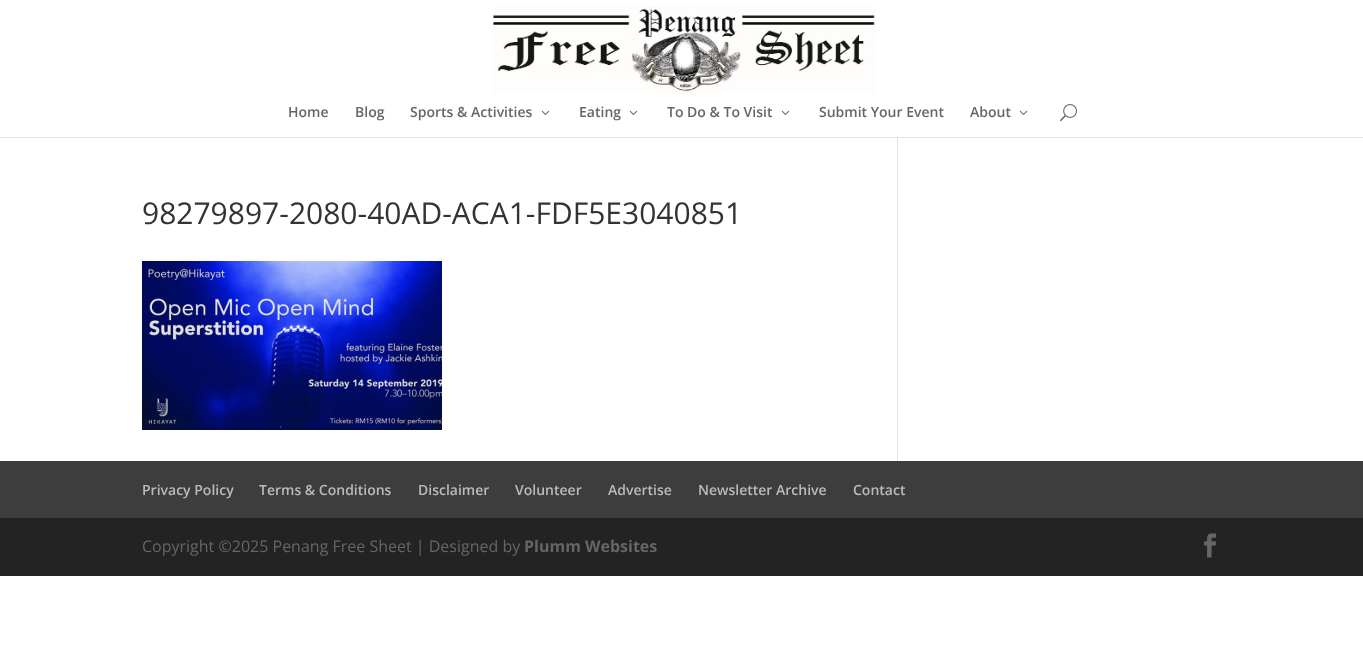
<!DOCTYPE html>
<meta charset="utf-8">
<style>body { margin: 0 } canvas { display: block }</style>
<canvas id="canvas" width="1363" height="670"></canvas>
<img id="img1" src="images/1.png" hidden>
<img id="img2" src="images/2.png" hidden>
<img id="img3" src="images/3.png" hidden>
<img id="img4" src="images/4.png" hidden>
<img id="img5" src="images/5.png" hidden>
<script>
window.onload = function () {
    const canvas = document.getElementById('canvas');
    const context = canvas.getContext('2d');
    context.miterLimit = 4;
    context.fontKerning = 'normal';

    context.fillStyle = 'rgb(255, 255, 255)';
    context.fillRect(0, 0, 1363, 670);
    context.fillStyle = 'rgb(230, 230, 230)';
    context.fillRect(0, 137, 1363, 1);
    context.drawImage(document.getElementById('img1'), 493, 6, 383, 88);
    context.drawImage(document.getElementById('img2'), 541, 110, 9, 5);
    context.drawImage(document.getElementById('img2'), 629, 110, 9, 5);
    context.drawImage(document.getElementById('img2'), 781, 110, 9, 5);
    context.drawImage(document.getElementById('img2'), 1019, 110, 9, 5);
    context.drawImage(document.getElementById('img3'), 1060, 104, 17, 18);
    context.drawImage(document.getElementById('img4'), 142, 261, 300, 169);
    context.fillStyle = 'rgb(226, 226, 226)';
    context.fillRect(897, 137, 1, 324);
    context.fillStyle = 'rgb(203, 203, 203)';
    context.fillRect(897, 137, 1, 1);
    context.fillStyle = 'rgb(61, 61, 61)';
    context.fillRect(0, 461, 1363, 57);
    context.fillStyle = 'rgb(35, 35, 35)';
    context.fillRect(0, 518, 1363, 58);
    context.drawImage(document.getElementById('img5'), 1204, 533, 12, 25);
    context.font = '600 14px Open Sans';
    context.fillStyle = 'rgb(102, 102, 102)';
    context.fillText('Home', 288, 117);
    context.fillText('Blog', 355, 117);
    context.fillText('Sports & Activities', 410, 117);
    context.fillText('Eating', 579, 117);
    context.fillText('To Do & To Visit', 667, 117);
    context.fillText('Submit Your Event', 819, 117);
    context.fillText('About', 970, 117);
    context.font = '30px Open Sans';
    context.fillStyle = 'rgb(51, 51, 51)';
    context.fillText('98279897-2080-40AD-ACA1-FDF5E3040851', 142, 224);
    context.font = '600 14px Open Sans';
    context.fillStyle = 'rgb(187, 187, 187)';
    context.fillText('Privacy Policy', 142, 495);
    context.fillText('Terms & Conditions', 259, 495);
    context.fillText('Disclaimer', 418, 495);
    context.fillText('Volunteer', 515, 495);
    context.fillText('Advertise', 608, 495);
    context.fillText('Newsletter Archive', 698, 495);
    context.fillText('Contact', 853, 495);
    context.font = '16px Open Sans';
    context.fillStyle = 'rgb(102, 102, 102)';
    context.fillText('Copyright ©2025 Penang Free Sheet | Designed by', 142, 552);
    context.font = 'bold 16px Open Sans';
    context.fillText('Plumm Websites', 524, 552);
};
</script>
